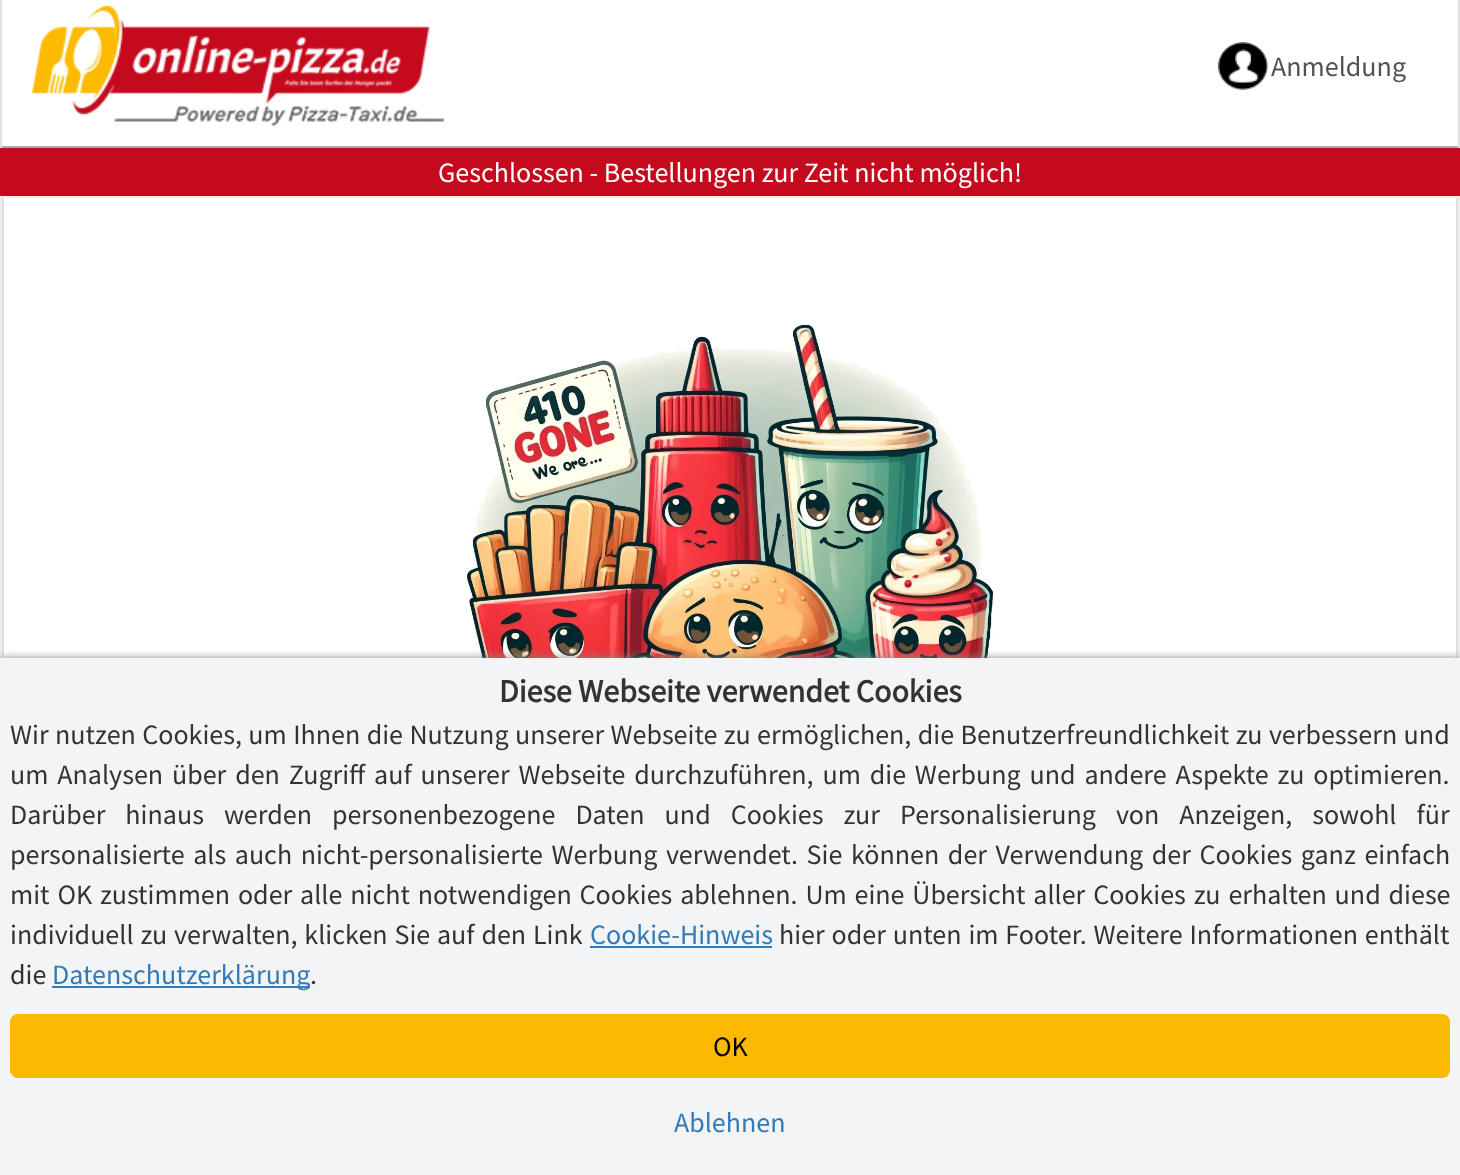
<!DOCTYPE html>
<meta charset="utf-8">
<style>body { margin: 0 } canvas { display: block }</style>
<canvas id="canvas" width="1460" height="1175"></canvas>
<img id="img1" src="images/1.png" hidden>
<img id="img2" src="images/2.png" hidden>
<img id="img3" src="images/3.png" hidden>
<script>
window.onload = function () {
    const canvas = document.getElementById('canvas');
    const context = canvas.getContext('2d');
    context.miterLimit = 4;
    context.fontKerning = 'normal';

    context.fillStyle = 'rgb(198, 10, 30)';
    context.fillRect(0, 0, 1460, 1175);
    context.fillStyle = 'rgb(255, 255, 255)';
    context.fillRect(2, 0, 1456, 146);
    context.fillStyle = 'rgb(224, 224, 224)';
    context.fillRect(1458, 0, 2, 148);
    context.fillRect(0, 0, 2, 148);
    context.fillStyle = 'rgb(172, 172, 172)';
    context.fillRect(2, 146, 1456, 2);
    context.drawImage(document.getElementById('img1'), 32, 6, 412, 120);
    context.drawImage(document.getElementById('img2'), 1218, 42, 50, 48);
    context.strokeStyle = 'rgb(238, 238, 238)';
    context.lineWidth = 2;
    context.strokeRect(1, 197, 1458, 818);
    context.fillStyle = 'rgb(255, 255, 255)';
    context.fillRect(4, 198, 1452, 460);
    context.fillStyle = 'rgb(224, 224, 224)';
    context.fillRect(1456, 198, 2, 460);
    context.fillRect(2, 198, 2, 460);
    context.drawImage(document.getElementById('img3'), 466, 324, 529, 334);
    context.fillStyle = 'rgb(137, 137, 137)';
    context.filter = 'blur(4px)';
    context.beginPath();
    context.rect(0, 658, 1460, 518);
    context.fill();
    context.filter = 'none';
    context.fillStyle = 'rgb(242, 244, 246)';
    context.fillRect(0, 658, 1460, 517);
    context.fillStyle = 'rgb(51, 122, 183)';
    context.fillRect(590, 946, 182, 2);
    context.fillRect(52, 986, 258, 2);
    context.fillStyle = 'rgb(251, 185, 0)';
    context.beginPath();
    context.roundRect(10, 1014, 1440, 64, 8);
    context.fill();
    context.font = '28px Source Sans Pro';
    context.fillStyle = 'rgb(82, 82, 82)';
    context.fillText('Anmeldung', 1271, 76);
    context.fillStyle = 'rgb(255, 255, 255)';
    context.fillText('Geschlossen - Bestellungen zur Zeit nicht möglich!', 438, 182);
    context.font = 'bold 32px Source Sans Pro';
    context.fillStyle = 'rgb(51, 51, 51)';
    context.fillText('Diese Webseite verwendet Cookies', 499, 702);
    context.wordSpacing = '0.8px';
    context.font = '28px Source Sans Pro';
    context.fillText('Wir nutzen Cookies, um Ihnen die Nutzung unserer Webseite zu ermöglichen, die Benutzerfreundlichkeit zu verbessern und', 10, 744);
    context.wordSpacing = '3.25px';
    context.fillText('um Analysen über den Zugriff auf unserer Webseite durchzuführen, um die Werbung und andere Aspekte zu optimieren.', 10, 784);
    context.wordSpacing = '14.4px';
    context.fillText('Darüber hinaus werden personenbezogene Daten und Cookies zur Personalisierung von Anzeigen, sowohl für', 10, 824);
    context.wordSpacing = '3px';
    context.fillText('personalisierte als auch nicht-personalisierte Werbung verwendet. Sie können der Verwendung der Cookies ganz einfach', 10, 864);
    context.wordSpacing = '2.25px';
    context.fillText('mit OK zustimmen oder alle nicht notwendigen Cookies ablehnen. Um eine Übersicht aller Cookies zu erhalten und diese', 10, 904);
    context.wordSpacing = '1.25px';
    context.fillText('individuell zu verwalten, klicken Sie auf den Link', 10, 944);
    context.wordSpacing = '0px';
    context.fillStyle = 'rgb(51, 122, 183)';
    context.fillText('Cookie-Hinweis', 590, 944);
    context.wordSpacing = '1.25px';
    context.fillStyle = 'rgb(51, 51, 51)';
    context.fillText('hier oder unten im Footer. Weitere Informationen enthält', 779, 944);
    context.wordSpacing = '0px';
    context.fillText('die', 10, 984);
    context.fillStyle = 'rgb(51, 122, 183)';
    context.fillText('Datenschutzerklärung', 52, 984);
    context.fillStyle = 'rgb(51, 51, 51)';
    context.fillText('.', 310, 984);
    context.fillStyle = 'rgb(0, 0, 0)';
    context.fillText('OK', 713, 1056);
    context.fillStyle = 'rgb(51, 122, 183)';
    context.fillText('Ablehnen', 674, 1132);
};
</script>
